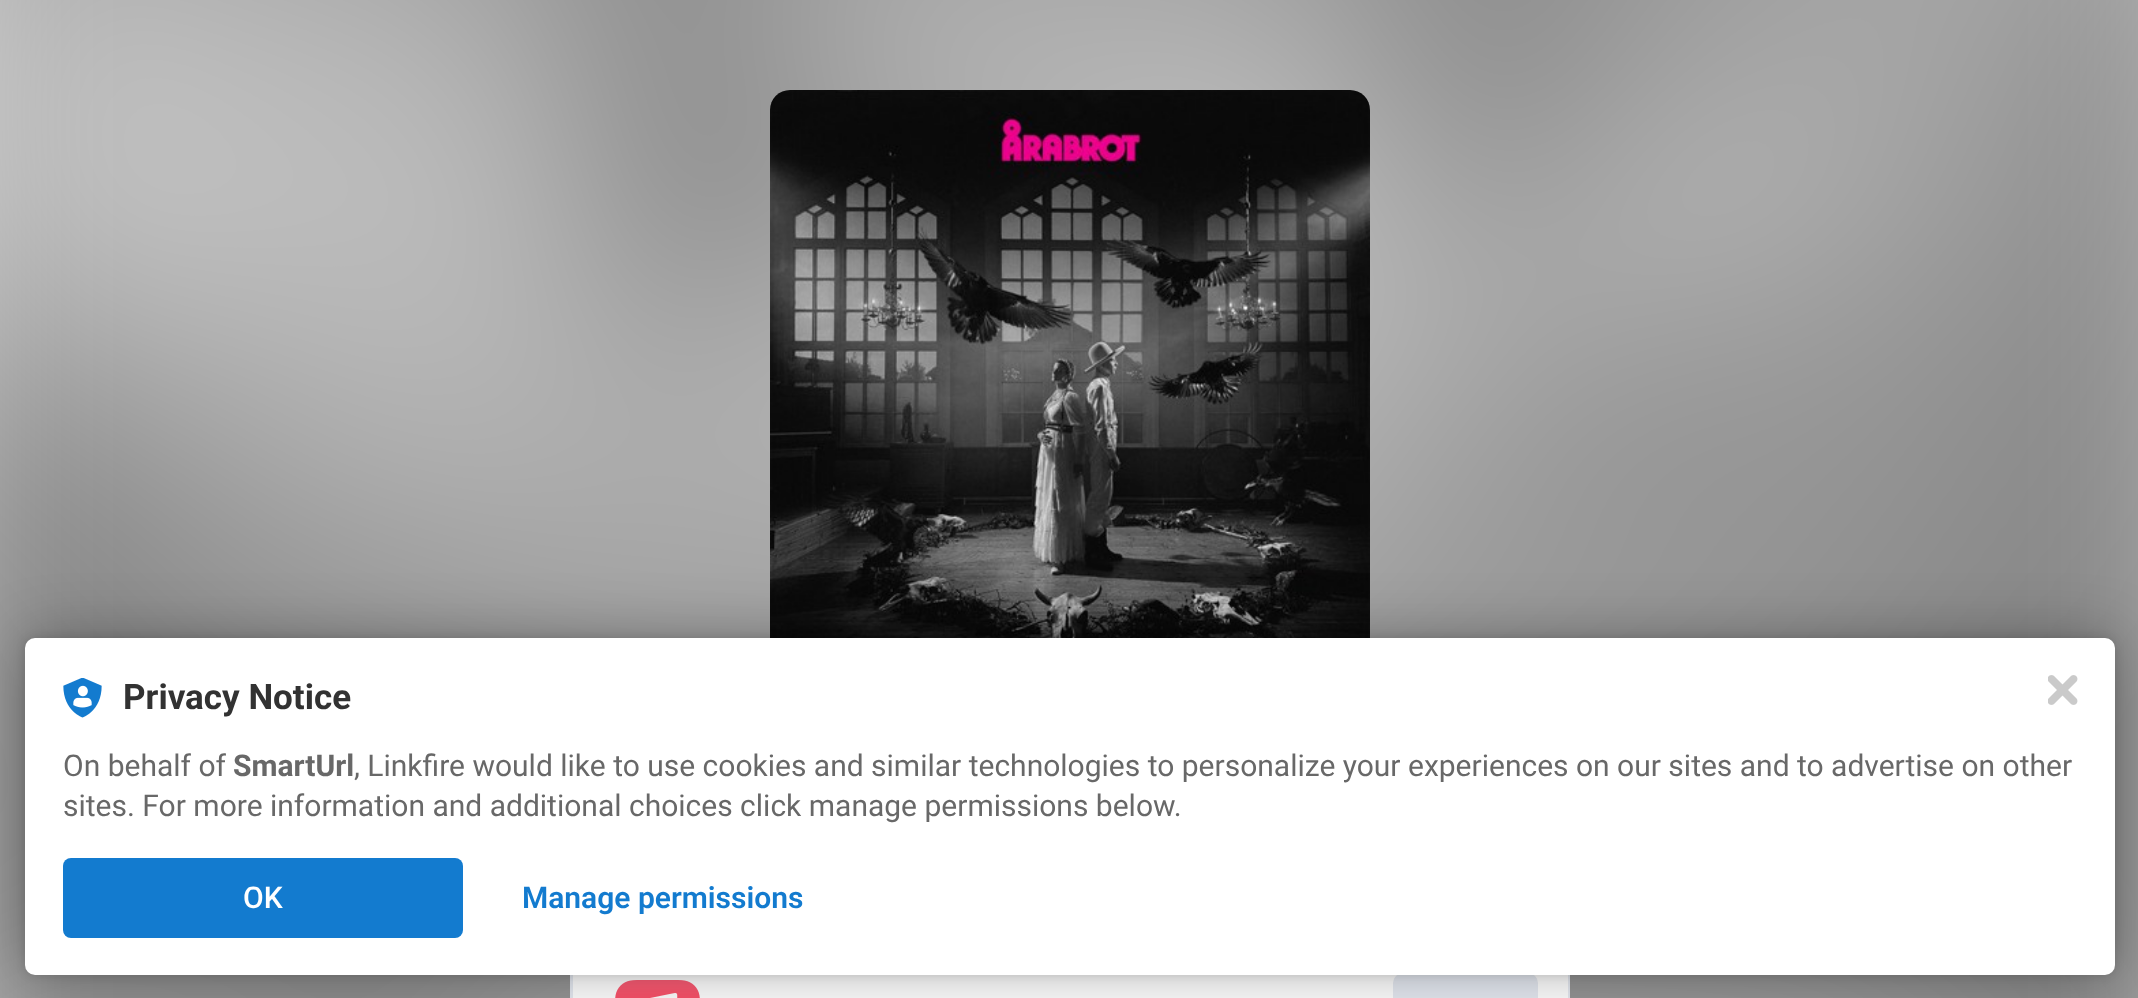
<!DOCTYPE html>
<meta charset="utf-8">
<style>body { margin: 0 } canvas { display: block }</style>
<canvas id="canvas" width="2138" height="998"></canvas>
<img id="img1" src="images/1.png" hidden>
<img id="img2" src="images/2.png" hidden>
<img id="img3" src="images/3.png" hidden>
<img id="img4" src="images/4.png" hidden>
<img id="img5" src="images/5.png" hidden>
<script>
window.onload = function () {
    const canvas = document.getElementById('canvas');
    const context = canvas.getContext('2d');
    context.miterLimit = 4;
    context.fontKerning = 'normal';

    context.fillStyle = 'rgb(255, 255, 255)';
    context.fillRect(0, 0, 2138, 998);
    context.drawImage(document.getElementById('img1'), 0, 0, 2138, 998);
    context.drawImage(document.getElementById('img2'), 770, 90, 600, 548);
    context.strokeStyle = 'rgb(230, 234, 242)';
    context.lineWidth = 3;
    context.strokeRect(571.5, 931.5, 997, 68);
    context.fillRect(573, 975, 995, 23);
    context.drawImage(document.getElementById('img3'), 615, 980, 85, 18);
    context.fillStyle = 'rgb(230, 234, 242)';
    context.beginPath();
    context.roundRect(1393, 973, 145, 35, 10);
    context.fill();
    context.fillStyle = 'rgba(0, 0, 0, 0.12)';
    context.filter = 'blur(5px)';
    context.beginPath();
    context.roundRect(25, 638, 2090, 337, 10);
    context.fill();
    context.filter = 'none';
    context.fillStyle = 'rgba(0, 0, 0, 0.3)';
    context.filter = 'blur(30px)';
    context.beginPath();
    context.roundRect(25, 638, 2090, 337, 10);
    context.fill();
    context.filter = 'none';
    context.fillStyle = 'rgb(255, 255, 255)';
    context.beginPath();
    context.roundRect(25, 638, 2090, 337, 10);
    context.fill();
    context.drawImage(document.getElementById('img4'), 2048, 675, 30, 30);
    context.drawImage(document.getElementById('img5'), 63, 678, 39, 40);
    context.fillStyle = 'rgb(19, 123, 207)';
    context.beginPath();
    context.roundRect(63, 858, 400, 80, 8);
    context.fill();
    context.font = 'bold 35px Roboto';
    context.fillStyle = 'rgb(50, 50, 50)';
    context.fillText('Privacy Notice', 123, 709);
    context.font = '30px Roboto';
    context.fillStyle = 'rgb(104, 104, 104)';
    context.fillText('On behalf of', 63, 776);
    context.font = 'bold 30px Roboto';
    context.fillText('SmartUrl', 233, 776);
    context.font = '30px Roboto';
    context.fillText(', Linkfire would like to use cookies and similar technologies to personalize your experiences on our sites and to advertise on other', 354, 776);
    context.fillText('sites. For more information and additional choices click manage permissions below.', 63, 816);
    context.font = '500 30px Roboto';
    context.fillStyle = 'rgb(255, 255, 255)';
    context.fillText('OK', 243, 908);
    context.font = '600 30px Roboto';
    context.fillStyle = 'rgb(19, 123, 207)';
    context.fillText('Manage permissions', 522, 908);
};
</script>
